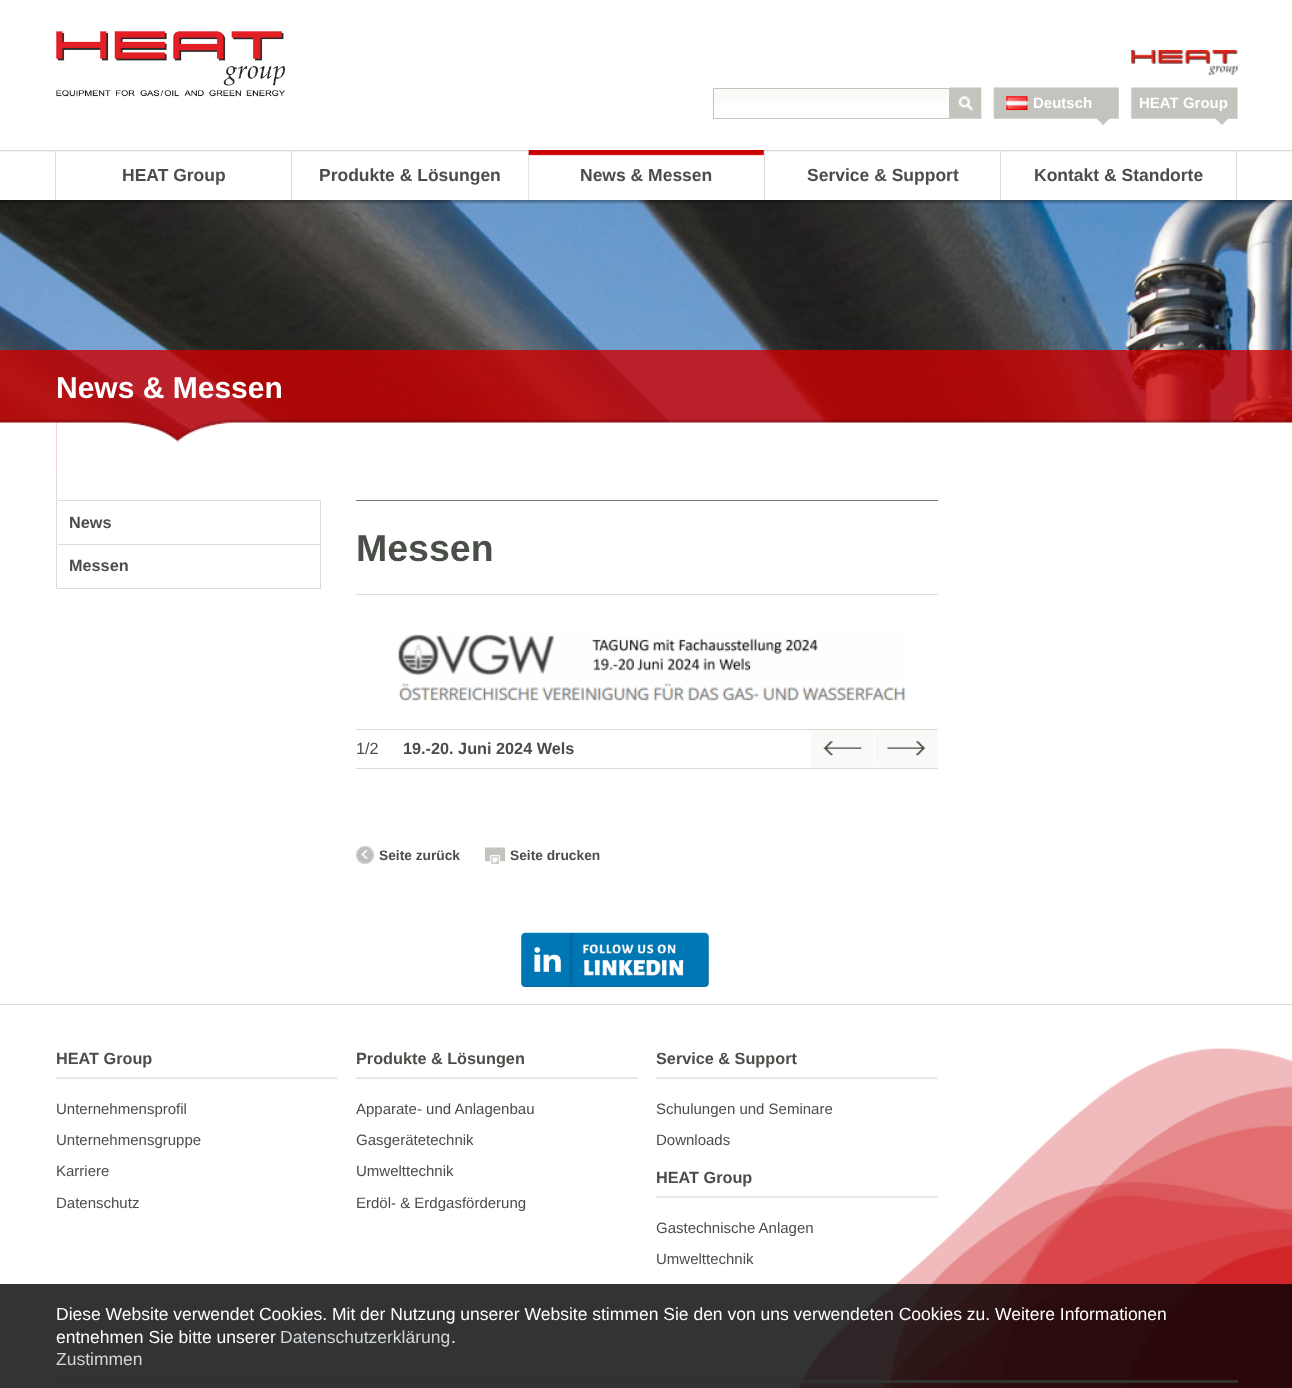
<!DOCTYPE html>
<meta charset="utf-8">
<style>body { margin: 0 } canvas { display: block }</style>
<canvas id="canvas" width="1292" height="1388"></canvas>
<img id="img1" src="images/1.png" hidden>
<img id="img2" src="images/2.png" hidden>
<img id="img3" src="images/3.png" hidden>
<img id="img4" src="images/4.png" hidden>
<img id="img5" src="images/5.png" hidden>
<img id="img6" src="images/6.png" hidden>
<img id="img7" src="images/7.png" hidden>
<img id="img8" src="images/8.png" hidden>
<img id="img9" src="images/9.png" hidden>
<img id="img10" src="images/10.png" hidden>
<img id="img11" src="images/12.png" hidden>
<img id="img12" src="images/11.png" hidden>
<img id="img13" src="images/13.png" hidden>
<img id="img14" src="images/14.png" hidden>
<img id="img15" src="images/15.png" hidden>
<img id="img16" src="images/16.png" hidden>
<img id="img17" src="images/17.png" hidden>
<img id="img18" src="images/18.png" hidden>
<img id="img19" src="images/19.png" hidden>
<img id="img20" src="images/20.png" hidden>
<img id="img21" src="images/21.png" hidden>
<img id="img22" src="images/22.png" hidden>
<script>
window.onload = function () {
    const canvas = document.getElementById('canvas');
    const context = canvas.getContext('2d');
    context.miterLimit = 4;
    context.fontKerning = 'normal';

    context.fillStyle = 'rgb(255, 255, 255)';
    context.fillRect(0, 0, 1292, 1388);
    context.drawImage(document.getElementById('img1'), 56, 31, 229, 66);
    context.drawImage(document.getElementById('img2'), 1131, 50, 107, 25);
    context.fillStyle = 'rgb(250, 250, 249)';
    context.fillRect(712, 89, 237, 14);
    context.strokeStyle = 'rgb(194, 196, 189)';
    context.strokeRect(713.5, 88.5, 236, 30);
    context.drawImage(document.getElementById('img3'), 950, 87, 32, 32);
    context.drawImage(document.getElementById('img4'), 993, 87, 126, 38);
    context.drawImage(document.getElementById('img5'), 1006, 96, 22, 14);
    context.drawImage(document.getElementById('img6'), 1131, 87, 107, 38);
    context.drawImage(document.getElementById('img7'), 0, 150, 1292, 2);
    context.fillStyle = 'rgb(218, 220, 212)';
    context.fillRect(55, 150, 1, 50);
    context.fillRect(291, 150, 1, 50);
    context.fillRect(528, 150, 1, 50);
    context.drawImage(document.getElementById('img8'), 528, 150, 236, 50);
    context.fillRect(764, 150, 1, 50);
    context.fillRect(1000, 150, 1, 50);
    context.fillRect(1236, 150, 1, 50);
    context.drawImage(document.getElementById('img9'), 0, 200, 1292, 300);
    context.drawImage(document.getElementById('img10'), 0, 200, 1292, 4);
    context.fillStyle = 'rgba(204, 0, 0, 0.8)';
    context.fillRect(0, 350, 1292, 125);
    context.drawImage(document.getElementById('img11'), 56, 419, 1182, 81);
    context.drawImage(document.getElementById('img12'), 0, 419, 57, 81);
    context.drawImage(document.getElementById('img13'), 1236, 419, 56, 81);
    context.fillStyle = 'rgb(218, 220, 212)';
    context.fillRect(320, 500, 1, 89);
    context.fillRect(56, 500, 1, 89);
    context.fillRect(58, 588, 262, 1);
    context.fillRect(58, 500, 262, 1);
    context.fillRect(58, 544, 262, 1);
    context.fillStyle = 'rgb(113, 117, 110)';
    context.fillRect(356, 500, 582, 1);
    context.fillStyle = 'rgb(218, 220, 212)';
    context.fillRect(356, 594, 582, 1);
    context.drawImage(document.getElementById('img14'), 398, 634, 508, 67);
    context.fillRect(356, 729, 582, 1);
    context.fillRect(356, 768, 582, 1);
    context.drawImage(document.getElementById('img15'), 811, 730, 63, 38);
    context.drawImage(document.getElementById('img16'), 875, 730, 63, 38);
    context.drawImage(document.getElementById('img17'), 356, 846, 18, 18);
    context.drawImage(document.getElementById('img18'), 485, 847, 20, 17);
    context.drawImage(document.getElementById('img19'), 521, 932, 188, 56);
    context.drawImage(document.getElementById('img20'), 798, 1047, 494, 341);
    context.fillRect(0, 1004, 1292, 1);
    context.drawImage(document.getElementById('img21'), 56, 1077, 282, 2);
    context.drawImage(document.getElementById('img21'), 356, 1077, 282, 2);
    context.drawImage(document.getElementById('img21'), 656, 1077, 282, 2);
    context.drawImage(document.getElementById('img22'), 656, 1196, 282, 2);
    context.fillStyle = 'rgb(243, 244, 241)';
    context.fillRect(56, 1380, 1182, 3);
    context.fillStyle = 'rgba(0, 0, 0, 0.8)';
    context.fillRect(0, 1284, 1292, 104);
    context.font = 'bold 15px Liberation Sans';
    context.fillStyle = 'rgb(255, 255, 255)';
    context.fillText('Deutsch', 1033, 108);
    context.fillText('HEAT Group', 1139, 108);
    context.font = 'bold 17.5px Liberation Sans';
    context.fillStyle = 'rgb(74, 78, 72)';
    context.fillText('HEAT Group', 122, 181);
    context.fillText('Produkte & Lösungen', 319, 181);
    context.fillText('News & Messen', 580, 181);
    context.fillText('Service & Support', 807, 181);
    context.fillText('Kontakt & Standorte', 1034, 181);
    context.font = 'bold 30px Liberation Sans';
    context.fillStyle = 'rgb(255, 255, 255)';
    context.fillText('News & Messen', 56, 398);
    context.font = 'bold 16.25px Liberation Sans';
    context.fillStyle = 'rgb(74, 78, 72)';
    context.fillText('News', 69, 528);
    context.fillText('Messen', 69, 571);
    context.font = 'bold 37.5px Liberation Sans';
    context.fillText('Messen', 356, 561);
    context.font = '16.25px Liberation Sans';
    context.fillText('1/2', 356, 754);
    context.font = 'bold 16.25px Liberation Sans';
    context.fillText('19.-20. Juni 2024 Wels', 403, 754);
    context.font = 'bold 13.75px Liberation Sans';
    context.fillText('Seite zurück', 379, 860);
    context.fillText('Seite drucken', 510, 860);
    context.font = 'bold 16.25px Liberation Sans';
    context.fillText('HEAT Group', 56, 1064);
    context.font = '15px Liberation Sans';
    context.fillText('Unternehmensprofil', 56, 1114);
    context.fillText('Unternehmensgruppe', 56, 1145);
    context.fillText('Karriere', 56, 1176);
    context.fillText('Datenschutz', 56, 1208);
    context.font = 'bold 16.25px Liberation Sans';
    context.fillText('Produkte & Lösungen', 356, 1064);
    context.font = '15px Liberation Sans';
    context.fillText('Apparate- und Anlagenbau', 356, 1114);
    context.fillText('Gasgerätetechnik', 356, 1145);
    context.fillText('Umwelttechnik', 356, 1176);
    context.fillText('Erdöl- & Erdgasförderung', 356, 1208);
    context.font = 'bold 16.25px Liberation Sans';
    context.fillText('Service & Support', 656, 1064);
    context.font = '15px Liberation Sans';
    context.fillText('Schulungen und Seminare', 656, 1114);
    context.fillText('Downloads', 656, 1145);
    context.font = 'bold 16.25px Liberation Sans';
    context.fillText('HEAT Group', 656, 1183);
    context.font = '15px Liberation Sans';
    context.fillText('Gastechnische Anlagen', 656, 1233);
    context.fillText('Umwelttechnik', 656, 1264);
    context.font = '17.5px Liberation Sans';
    context.fillStyle = 'rgb(255, 255, 255)';
    context.fillText('Diese Website verwendet Cookies. Mit der Nutzung unserer Website stimmen Sie den von uns verwendeten Cookies zu. Weitere Informationen', 56, 1320);
    context.fillText('entnehmen Sie bitte unserer', 56, 1343);
    context.fillStyle = 'rgb(208, 214, 217)';
    context.fillText('Datenschutzerklärung', 280, 1343);
    context.fillStyle = 'rgb(255, 255, 255)';
    context.fillText('.', 451, 1343);
    context.fillStyle = 'rgb(208, 214, 217)';
    context.fillText('Zustimmen', 56, 1365);
};
</script>
